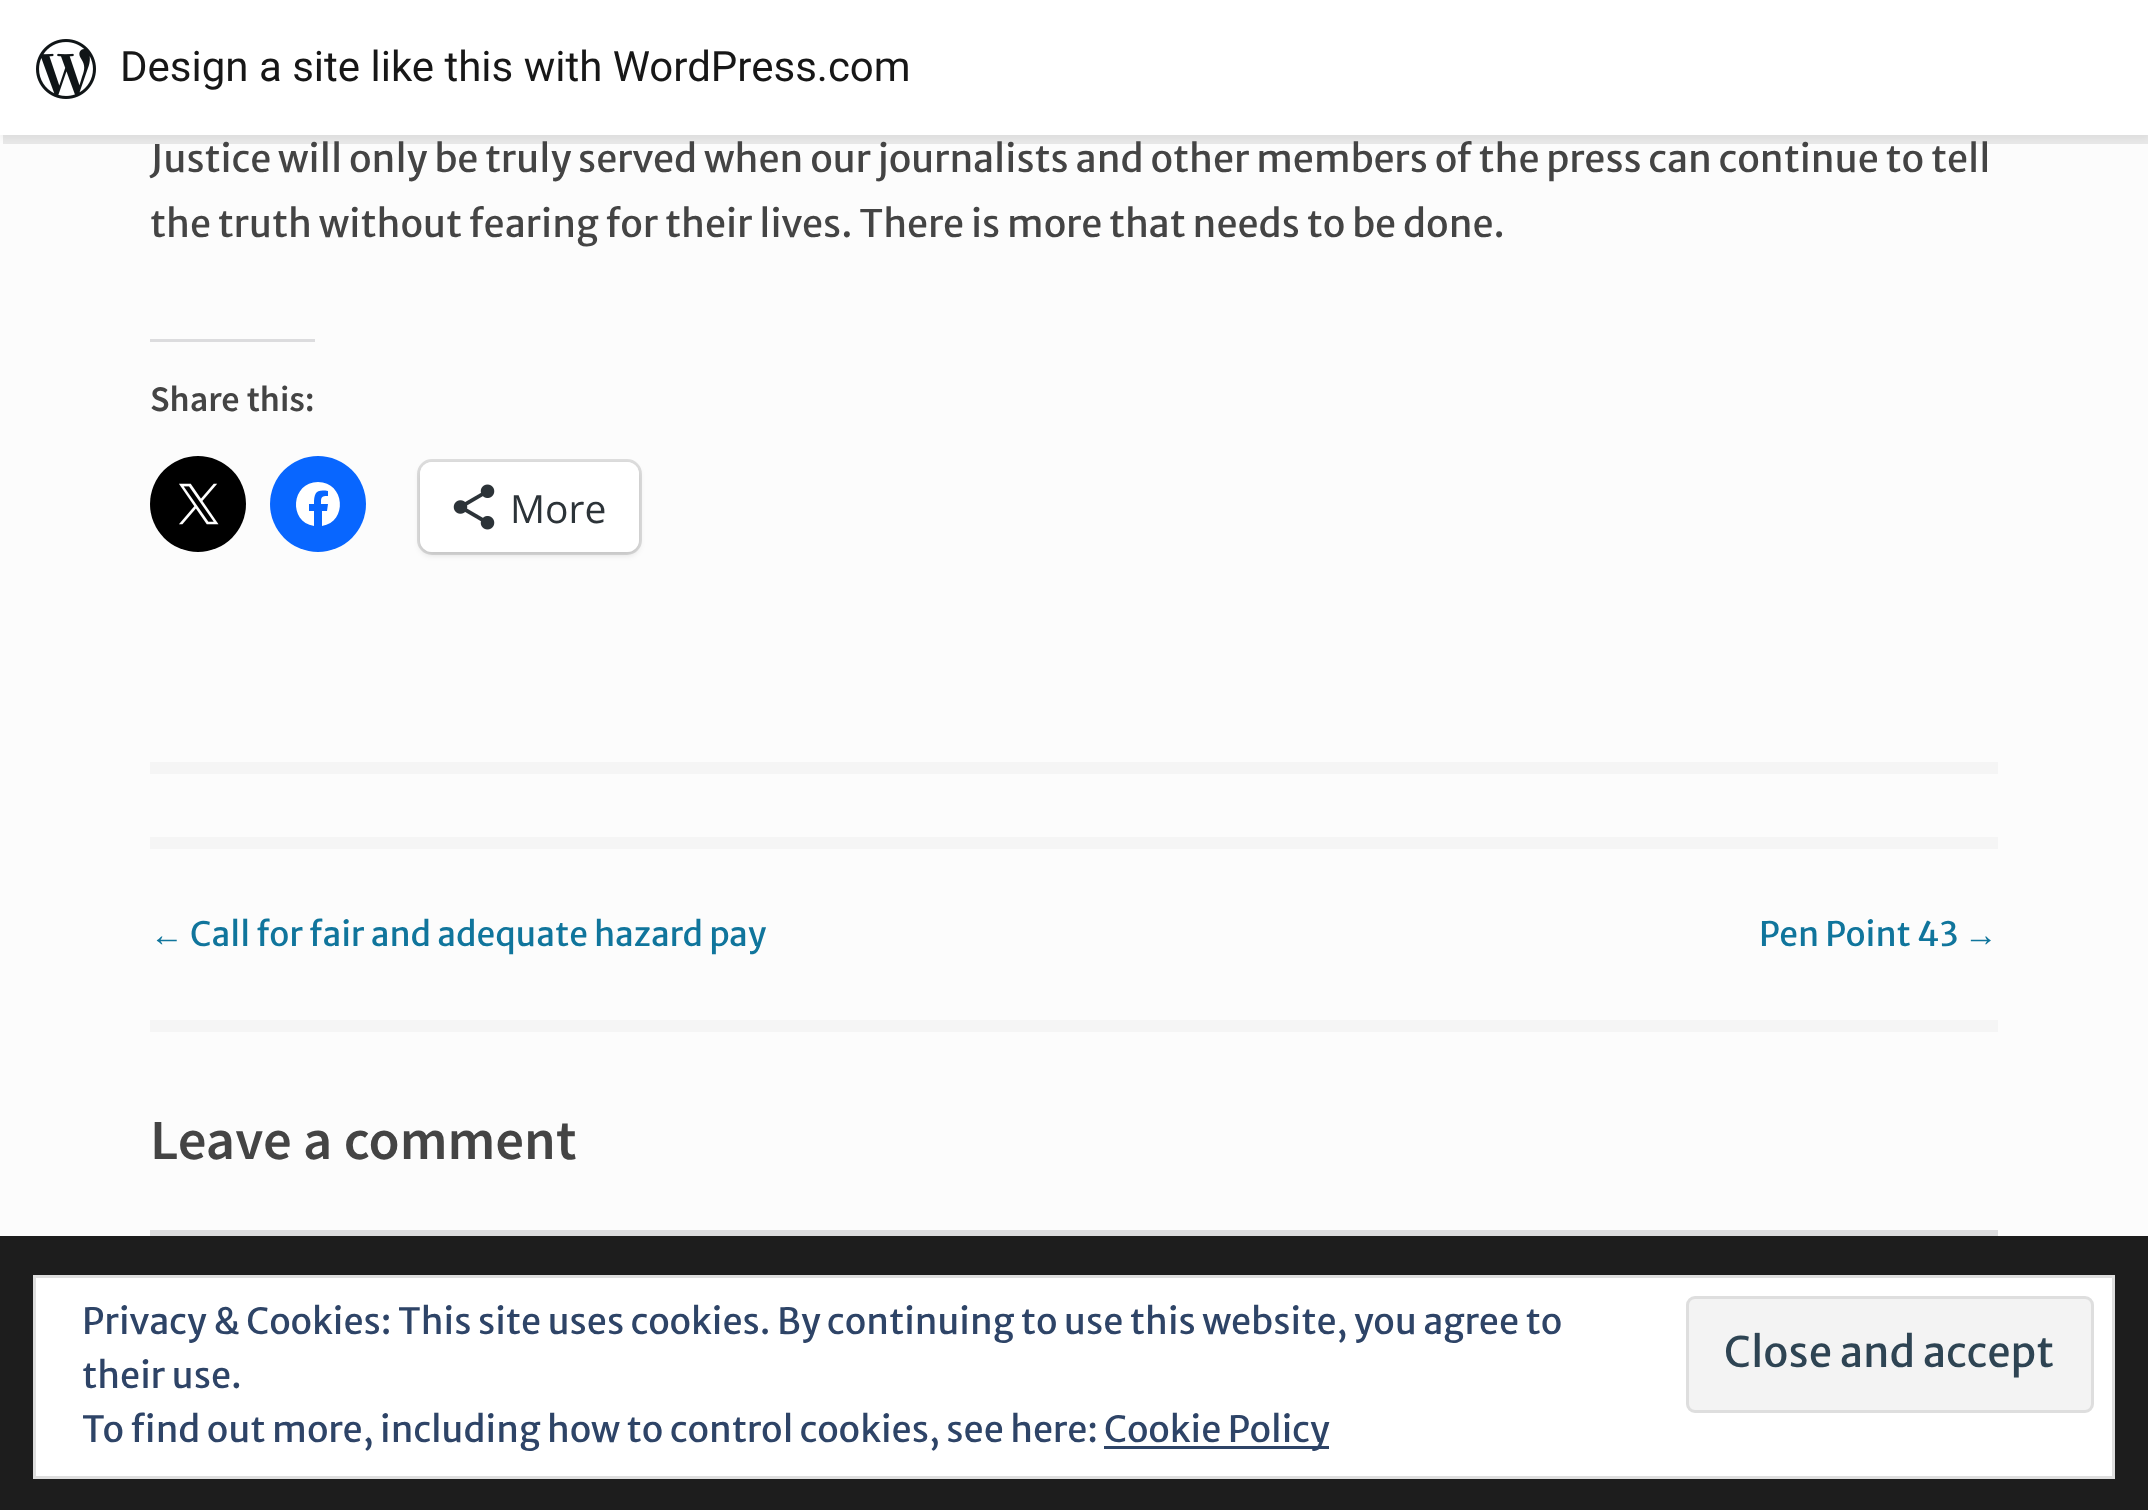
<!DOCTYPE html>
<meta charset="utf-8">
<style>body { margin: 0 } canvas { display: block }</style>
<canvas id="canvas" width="2148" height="1510"></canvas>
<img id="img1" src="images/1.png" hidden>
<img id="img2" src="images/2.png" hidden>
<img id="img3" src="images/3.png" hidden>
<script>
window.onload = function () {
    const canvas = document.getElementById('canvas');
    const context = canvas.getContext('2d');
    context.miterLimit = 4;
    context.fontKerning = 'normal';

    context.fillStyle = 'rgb(252, 252, 252)';
    context.fillRect(0, 0, 2148, 1510);
    context.fillStyle = 'rgba(0, 0, 0, 0.05)';
    context.filter = 'blur(3px)';
    context.beginPath();
    context.rect(0, 3, 2148, 135);
    context.fill();
    context.filter = 'none';
    context.fillStyle = 'rgba(0, 0, 0, 0.08)';
    context.beginPath();
    context.moveTo(3, 135);
    context.lineTo(3, 144);
    context.lineTo(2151, 144);
    context.lineTo(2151, 9);
    context.lineTo(2148, 9);
    context.lineTo(2148, 135);
    context.closePath();
    context.fill();
    context.fillStyle = 'rgb(255, 255, 255)';
    context.fillRect(0, 0, 2148, 135);
    context.drawImage(document.getElementById('img1'), 36, 39, 60, 60);
    context.fillStyle = 'rgb(245, 245, 245)';
    context.fillRect(150, 762, 1848, 12);
    context.fillStyle = 'rgb(220, 220, 222)';
    context.fillRect(150, 339, 165, 3);
    context.fillStyle = 'rgb(0, 0, 0)';
    context.beginPath();
    context.arc(198, 504, 48, 0, 2 * Math.PI);
    context.fill();
    context.drawImage(document.getElementById('img2'), 179, 483, 40, 42);
    context.fillStyle = 'rgb(8, 102, 255)';
    context.beginPath();
    context.arc(318, 504, 48, 0, 2 * Math.PI);
    context.fill();
    context.fillStyle = 'rgb(255, 255, 255)';
    context.beginPath();
    context.moveTo(318, 482);
    context.bezierCurveTo(291, 482, 288, 522, 314, 526);
    context.lineTo(314, 511);
    context.lineTo(309, 511);
    context.lineTo(309, 504);
    context.lineTo(314, 504);
    context.bezierCurveTo(314, 493, 316, 489, 328, 491);
    context.lineTo(328, 496);
    context.bezierCurveTo(321, 496, 321, 497, 321, 504);
    context.lineTo(328, 504);
    context.lineTo(327, 511);
    context.lineTo(322, 511);
    context.lineTo(322, 526);
    context.bezierCurveTo(348, 522, 345, 482, 318, 482);
    context.closePath();
    context.fill();
    context.beginPath();
    context.roundRect(418.5, 460.5, 222, 93, 13.5);
    context.strokeStyle = 'rgb(222, 222, 222)';
    context.lineWidth = 3;
    context.stroke();
    context.fillStyle = 'rgba(0, 0, 0, 0.12)';
    context.filter = 'blur(3px)';
    context.beginPath();
    context.roundRect(420, 465, 219, 90, 12);
    context.fill();
    context.filter = 'none';
    context.fillStyle = 'rgb(255, 255, 255)';
    context.beginPath();
    context.roundRect(420, 462, 219, 90, 12);
    context.fill();
    context.drawImage(document.getElementById('img3'), 453, 484, 42, 46);
    context.fillStyle = 'rgb(245, 245, 245)';
    context.fillRect(150, 837, 1848, 12);
    context.fillRect(150, 1020, 1848, 12);
    context.fillStyle = 'rgb(220, 220, 222)';
    context.fillRect(150, 1230, 1848, 6);
    context.fillStyle = 'rgb(29, 29, 29)';
    context.fillRect(0, 1236, 2148, 274);
    context.fillStyle = 'rgb(255, 255, 255)';
    context.beginPath();
    context.rect(34.5, 1276.5, 2079, 201);
    context.fill();
    context.stroke();
    context.fillStyle = 'rgb(243, 243, 243)';
    context.beginPath();
    context.roundRect(1687.5, 1297.5, 405, 114, 7.5);
    context.fill();
    context.stroke();
    context.fillStyle = 'rgb(46, 68, 103)';
    context.fillRect(1104, 1446, 225, 3);
    context.font = '42px Roboto';
    context.fillStyle = 'rgb(23, 23, 23)';
    context.fillText('Design a site like this with WordPress.com', 120, 81);
    context.font = '37.8px Merriweather Sans';
    context.fillStyle = 'rgb(68, 68, 68)';
    context.fillText('Justice will only be truly served when our journalists and other members of the press can continue to tell', 150, 172);
    context.fillText('the truth without fearing for their lives. There is more that needs to be done.', 150, 237);
    context.font = '600 36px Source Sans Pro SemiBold';
    context.fillText('Share this:', 150, 411);
    context.font = '39px Open Sans';
    context.fillStyle = 'rgb(44, 51, 56)';
    context.fillText('More', 510, 523);
    context.font = '33.6px Liberation Sans';
    context.fillStyle = 'rgb(16, 117, 156)';
    context.fillText('←', 150, 946);
    context.font = '33.6px Merriweather Sans';
    context.fillText('Call for fair and adequate hazard pay', 190, 946);
    context.fillText('Pen Point 43', 1759, 946);
    context.font = '33.6px Liberation Sans';
    context.fillText('→', 1964, 946);
    context.font = '600 56.75px Source Sans Pro SemiBold';
    context.fillStyle = 'rgb(68, 68, 68)';
    context.fillText('Leave a comment', 150, 1159);
    context.font = '36px Merriweather Sans';
    context.fillStyle = 'rgb(46, 68, 103)';
    context.fillText('Privacy & Cookies: This site uses cookies. By continuing to use this website, you agree to', 82, 1334);
    context.fillText('their use.', 82, 1388);
    context.font = '42px Merriweather Sans';
    context.fillStyle = 'rgb(46, 68, 83)';
    context.fillText('Close and accept', 1724, 1367);
    context.font = '36px Merriweather Sans';
    context.fillStyle = 'rgb(46, 68, 103)';
    context.fillText('To find out more, including how to control cookies, see here:', 82, 1442);
    context.fillText('Cookie Policy', 1104, 1442);
};
</script>
